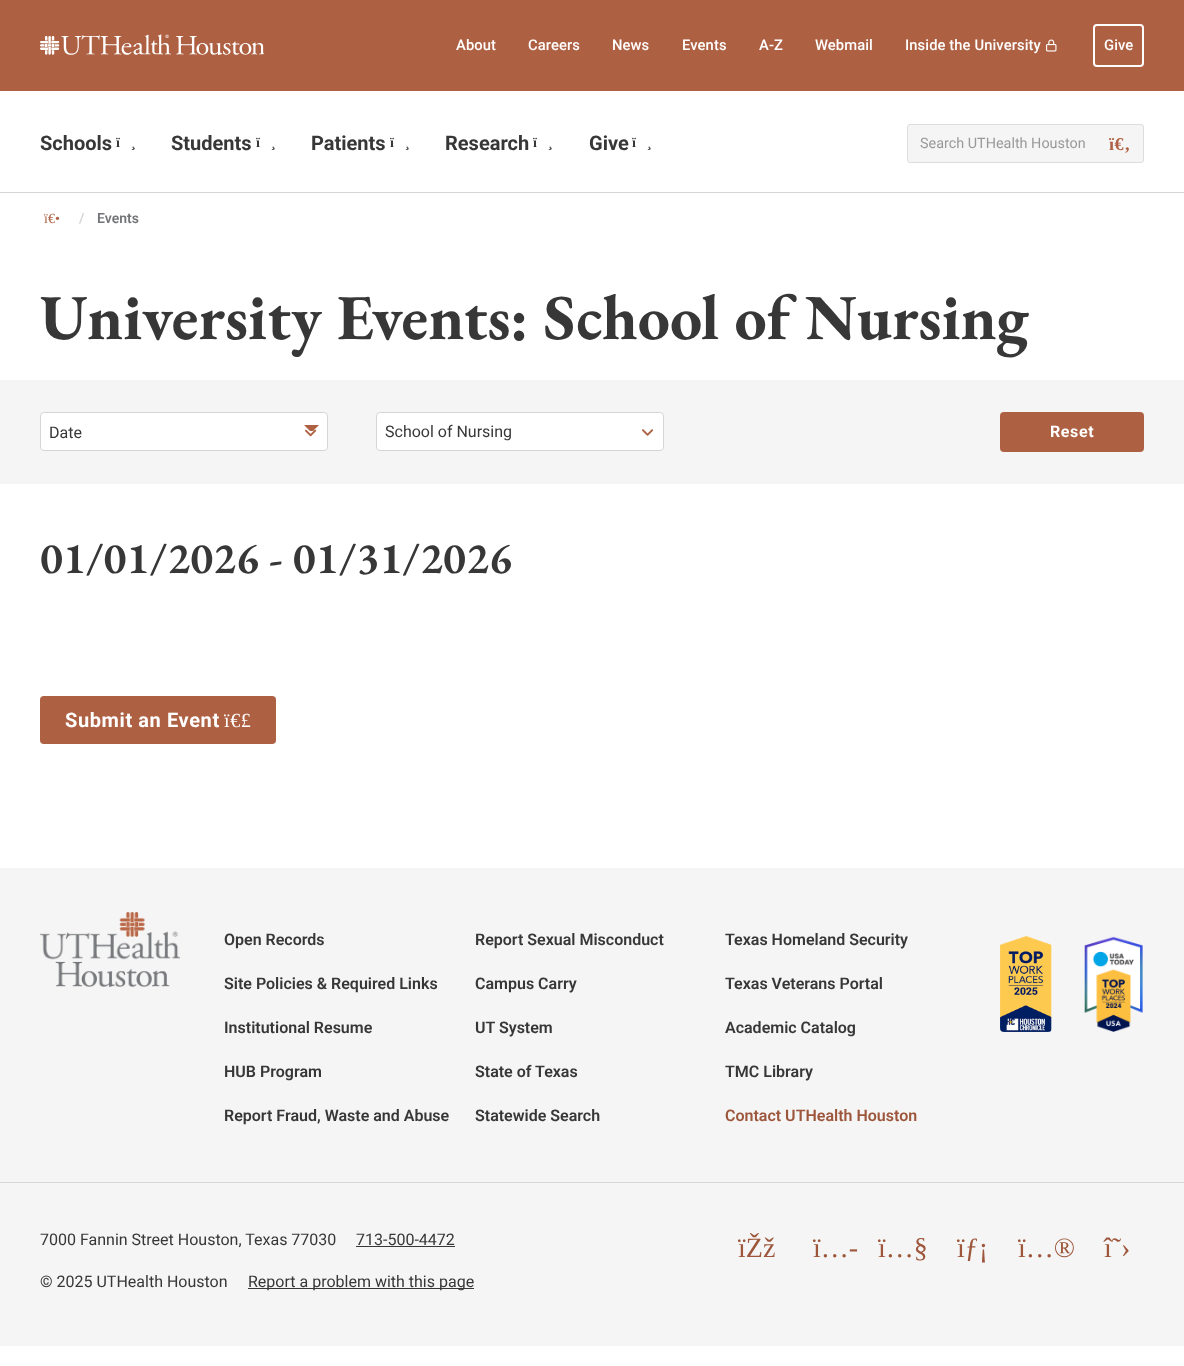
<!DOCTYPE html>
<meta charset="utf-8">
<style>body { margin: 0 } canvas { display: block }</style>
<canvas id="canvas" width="1184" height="1366"></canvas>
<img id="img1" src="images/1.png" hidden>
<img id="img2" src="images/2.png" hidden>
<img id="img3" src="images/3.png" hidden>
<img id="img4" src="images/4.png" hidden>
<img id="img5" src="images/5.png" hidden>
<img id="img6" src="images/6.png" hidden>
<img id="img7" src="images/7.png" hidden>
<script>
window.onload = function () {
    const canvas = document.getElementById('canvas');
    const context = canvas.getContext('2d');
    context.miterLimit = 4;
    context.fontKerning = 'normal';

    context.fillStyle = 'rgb(255, 255, 255)';
    context.fillRect(0, 0, 1184, 1366);
    context.fillStyle = 'rgb(213, 213, 213)';
    context.fillRect(0, 192, 1184, 1);
    context.fillStyle = 'rgb(174, 96, 66)';
    context.fillRect(0, 0, 1184, 91);
    context.drawImage(document.getElementById('img1'), 40, 34, 225, 21);
    context.drawImage(document.getElementById('img2'), 1046, 39, 11, 13);
    context.beginPath();
    context.roundRect(1094, 25, 49, 41, 3);
    context.strokeStyle = 'rgb(255, 255, 255)';
    context.lineWidth = 2;
    context.stroke();
    context.fillStyle = 'rgb(245, 245, 245)';
    context.beginPath();
    context.roundRect(907.5, 124.5, 236, 38, 2.5);
    context.fill();
    context.strokeStyle = 'rgb(221, 221, 221)';
    context.lineWidth = 1;
    context.stroke();
    context.fillRect(0, 380, 1184, 104);
    context.fillStyle = 'rgb(255, 255, 255)';
    context.beginPath();
    context.roundRect(40.5, 412.5, 287, 38, 3.5);
    context.fill();
    context.strokeStyle = 'rgb(213, 213, 213)';
    context.stroke();
    context.drawImage(document.getElementById('img3'), 305, 429, 12, 8);
    context.fillStyle = 'rgb(174, 96, 66)';
    context.beginPath();
    context.moveTo(304, 425);
    context.lineTo(319, 425);
    context.lineTo(313, 431);
    context.lineTo(310, 431);
    context.closePath();
    context.fill();
    context.fillStyle = 'rgb(255, 255, 255)';
    context.beginPath();
    context.roundRect(376.5, 412.5, 287, 38, 3.5);
    context.fill();
    context.stroke();
    context.drawImage(document.getElementById('img4'), 642, 429, 12, 7);
    context.fillStyle = 'rgb(174, 96, 66)';
    context.beginPath();
    context.roundRect(1000, 412, 144, 40, 4);
    context.fill();
    context.beginPath();
    context.roundRect(40, 696, 236, 48, 4);
    context.fill();
    context.fillStyle = 'rgb(245, 245, 245)';
    context.fillRect(0, 868, 1184, 478);
    context.drawImage(document.getElementById('img5'), 40, 912, 140, 75);
    context.drawImage(document.getElementById('img6'), 1000, 936, 52, 96);
    context.drawImage(document.getElementById('img7'), 1084, 936, 59, 96);
    context.fillStyle = 'rgb(213, 213, 213)';
    context.fillRect(0, 1182, 1184, 1);
    context.fillStyle = 'rgb(56, 55, 55)';
    context.fillRect(356, 1246, 99, 1);
    context.fillRect(248, 1288, 226, 1);
    context.letterSpacing = '0.1px';
    context.font = '500 14.75px Roboto';
    context.fillStyle = 'rgb(255, 255, 255)';
    context.fillText('About', 456, 50);
    context.fillText('Careers', 528, 50);
    context.fillText('News', 612, 50);
    context.fillText('Events', 682, 50);
    context.fillText('A-Z', 759, 50);
    context.fillText('Webmail', 815, 50);
    context.fillText('Inside the University', 905, 50);
    context.fillText('Give', 1104, 50);
    context.letterSpacing = '0px';
    context.font = 'bold 20px Roboto';
    context.fillStyle = 'rgb(56, 55, 55)';
    context.fillText('Schools', 40, 150);
    context.font = 'bold 14px Liberation Serif';
    context.fillText('ï', 116, 147);
    context.fillText('¸', 131, 147);
    context.font = 'bold 20px Roboto';
    context.fillText('Students', 171, 150);
    context.font = 'bold 14px Liberation Serif';
    context.fillText('ï', 256, 147);
    context.fillText('¸', 271, 147);
    context.font = 'bold 20px Roboto';
    context.fillText('Patients', 311, 150);
    context.font = 'bold 14px Liberation Serif';
    context.fillText('ï', 390, 147);
    context.fillText('¸', 405, 147);
    context.font = 'bold 20px Roboto';
    context.fillText('Research', 445, 150);
    context.font = 'bold 14px Liberation Serif';
    context.fillText('ï', 533, 147);
    context.fillText('¸', 548, 147);
    context.font = 'bold 20px Roboto';
    context.fillText('Give', 589, 150);
    context.font = 'bold 14px Liberation Serif';
    context.fillText('ï', 632, 147);
    context.fillText('¸', 647, 147);
    context.font = '14.4px Roboto';
    context.fillStyle = 'rgb(153, 153, 153)';
    context.fillText('Search UTHealth Houston', 920, 148);
    context.letterSpacing = '0.6px';
    context.font = 'bold 18px Liberation Serif';
    context.fillStyle = 'rgb(174, 96, 66)';
    context.fillText('ï€‚', 1109, 150);
    context.letterSpacing = '0px';
    context.font = '14px Liberation Serif';
    context.fillText('ï€•', 44, 223);
    context.font = '600 14px Roboto';
    context.fillStyle = 'rgb(213, 213, 213)';
    context.fillText('/', 79, 223);
    context.fillStyle = 'rgb(116, 117, 120)';
    context.fillText('Events', 97, 223);
    context.font = 'bold 64px EB Garamond';
    context.fillStyle = 'rgb(56, 55, 55)';
    context.fillText('University Events: School of Nursing', 40, 339);
    context.font = '16px Roboto';
    context.fillText('Date', 49, 438);
    context.fillText('School of Nursing', 385, 437);
    context.letterSpacing = '0.6px';
    context.font = 'bold 16px Roboto';
    context.fillStyle = 'rgb(255, 255, 255)';
    context.fillText('Reset', 1050, 437);
    context.letterSpacing = '0px';
    context.font = '600 44px EB Garamond';
    context.fillStyle = 'rgb(56, 55, 55)';
    context.fillText('01/01/2026 - 01/31/2026', 40, 573);
    context.letterSpacing = '0.6px';
    context.font = 'bold 20px Roboto';
    context.fillStyle = 'rgb(255, 255, 255)';
    context.fillText('Submit an Event', 65, 727);
    context.font = '20px Liberation Serif';
    context.fillText('ï€£', 224, 727);
    context.letterSpacing = '0px';
    context.font = '600 16px Roboto';
    context.fillStyle = 'rgb(56, 55, 55)';
    context.fillText('Open Records', 224, 945);
    context.fillText('Report Sexual Misconduct', 475, 945);
    context.fillText('Texas Homeland Security', 725, 945);
    context.fillText('Site Policies & Required Links', 224, 989);
    context.fillText('Campus Carry', 475, 989);
    context.fillText('Texas Veterans Portal', 725, 989);
    context.fillText('Institutional Resume', 224, 1033);
    context.fillText('UT System', 475, 1033);
    context.fillText('Academic Catalog', 725, 1033);
    context.fillText('HUB Program', 224, 1077);
    context.fillText('State of Texas', 475, 1077);
    context.fillText('TMC Library', 725, 1077);
    context.fillText('Report Fraud, Waste and Abuse', 224, 1121);
    context.fillText('Statewide Search', 475, 1121);
    context.fillStyle = 'rgb(157, 86, 59)';
    context.fillText('Contact UTHealth Houston', 725, 1121);
    context.font = '16px Roboto';
    context.fillStyle = 'rgb(56, 55, 55)';
    context.fillText('7000 Fannin Street Houston, Texas 77030', 40, 1245);
    context.fillText('713-500-4472', 356, 1245);
    context.fillText('© 2025 UTHealth Houston', 40, 1287);
    context.fillText('Report a problem with this page', 248, 1287);
    context.font = '28px Liberation Serif';
    context.fillStyle = 'rgb(157, 86, 59)';
    context.fillText('ïŽž', 738, 1257);
    context.fillText('ï…-', 813, 1257);
    context.fillText('ï…§', 878, 1257);
    context.fillText('ïƒ¡', 957, 1257);
    context.fillText('ï…®', 1018, 1257);
    context.fillText('î˜›', 1104, 1257);
};
</script>
